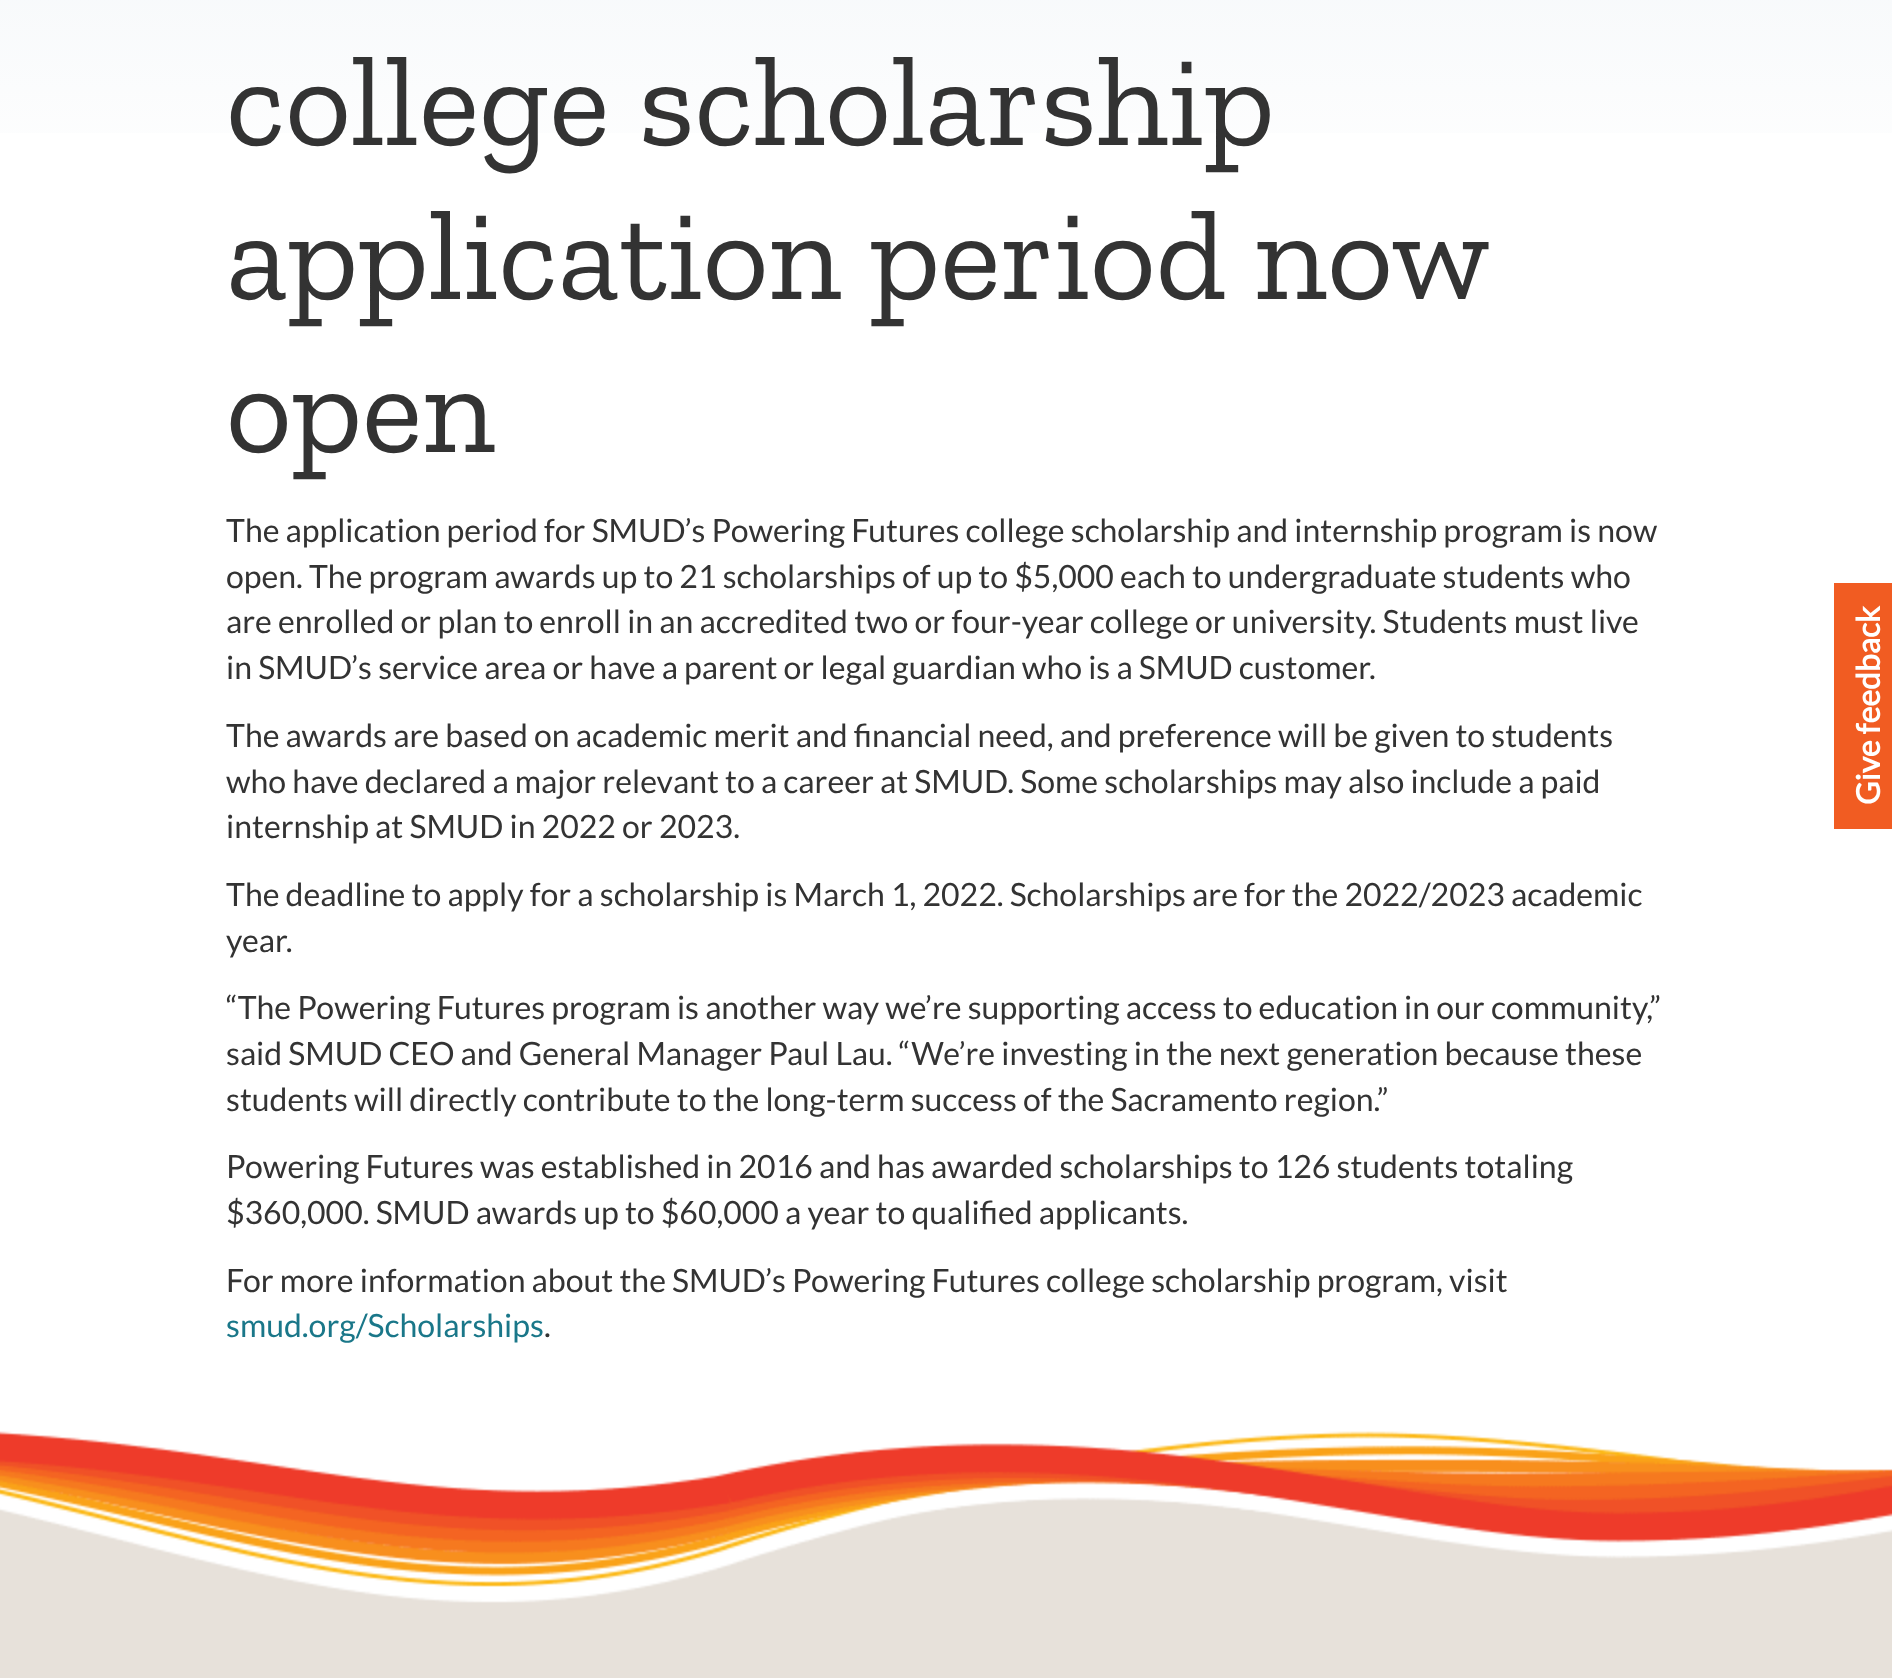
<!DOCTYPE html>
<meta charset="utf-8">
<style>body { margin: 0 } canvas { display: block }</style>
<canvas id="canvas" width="1892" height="1678"></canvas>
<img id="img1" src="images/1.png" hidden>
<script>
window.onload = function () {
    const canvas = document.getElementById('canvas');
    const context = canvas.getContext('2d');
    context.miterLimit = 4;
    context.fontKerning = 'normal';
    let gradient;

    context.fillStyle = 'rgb(255, 255, 255)';
    context.fillRect(0, 0, 1892, 1678);
    gradient = context.createLinearGradient(946, 1504, 946, -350);
    gradient.addColorStop(0.3, 'rgb(255, 255, 255)');
    gradient.addColorStop(0.7, 'rgb(255, 255, 255)');
    gradient.addColorStop(1, 'rgb(236, 241, 245)');
    context.fillStyle = gradient;
    context.fillRect(0, 0, 1892, 133);
    context.fillStyle = 'rgb(241, 92, 34)';
    context.fillRect(1834, 583, 58, 246);
    context.drawImage(document.getElementById('img1'), 0, 1431, 1892, 172);
    context.fillStyle = 'rgb(231, 225, 218)';
    context.fillRect(0, 1603, 1892, 75);
    context.font = '128px Zilla Slab';
    context.fillStyle = 'rgb(51, 51, 51)';
    context.fillText('college scholarship', 226, 145);
    context.wordSpacing = '-1px';
    context.fillText('application period now', 226, 299);
    context.wordSpacing = '0px';
    context.fillText('open', 226, 452);
    context.font = '32px Lato';
    context.fillText('The application period for SMUD’s Powering Futures college scholarship and internship program is now', 226, 542);
    context.fillText('open. The program awards up to 21 scholarships of up to $5,000 each to undergraduate students who', 226, 588);
    context.fillText('are enrolled or plan to enroll in an accredited two or four-year college or university. Students must live', 226, 633);
    context.fillText('in SMUD’s service area or have a parent or legal guardian who is a SMUD customer.', 226, 679);
    context.fillText('The awards are based on academic merit and financial need, and preference will be given to students', 226, 747);
    context.fillText('who have declared a major relevant to a career at SMUD. Some scholarships may also include a paid', 226, 793);
    context.fillText('internship at SMUD in 2022 or 2023.', 226, 838);
    context.fillText('The deadline to apply for a scholarship is March 1, 2022. Scholarships are for the 2022/2023 academic', 226, 906);
    context.fillText('year.', 226, 952);
    context.fillText('“The Powering Futures program is another way we’re supporting access to education in our community,”', 226, 1019);
    context.fillText('said SMUD CEO and General Manager Paul Lau. “We’re investing in the next generation because these', 226, 1065);
    context.fillText('students will directly contribute to the long-term success of the Sacramento region.”', 226, 1111);
    context.fillText('Powering Futures was established in 2016 and has awarded scholarships to 126 students totaling', 226, 1178);
    context.fillText('$360,000. SMUD awards up to $60,000 a year to qualified applicants.', 226, 1224);
    context.fillText('For more information about the SMUD’s Powering Futures college scholarship program, visit', 226, 1292);
    context.fillStyle = 'rgb(26, 119, 137)';
    context.fillText('smud.org/Scholarships', 226, 1337);
    context.fillStyle = 'rgb(51, 51, 51)';
    context.fillText('.', 544, 1337);
    context.font = 'bold 32px Lato';
    context.fillStyle = 'rgb(255, 255, 255)';
    context.save();
    context.translate(1880, 805);
    context.rotate(-90 * Math.PI / 180);
    context.fillText('Give feedback', 0, 0);
    context.restore();
};
</script>
